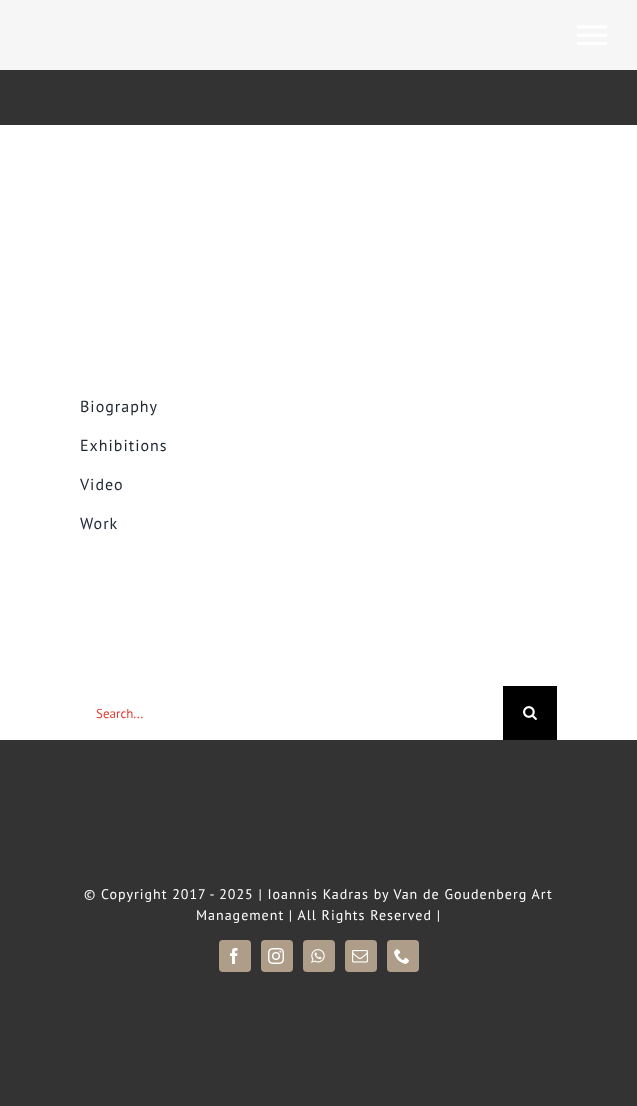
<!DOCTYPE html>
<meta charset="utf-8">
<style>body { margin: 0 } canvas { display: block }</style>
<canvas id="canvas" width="637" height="1106"></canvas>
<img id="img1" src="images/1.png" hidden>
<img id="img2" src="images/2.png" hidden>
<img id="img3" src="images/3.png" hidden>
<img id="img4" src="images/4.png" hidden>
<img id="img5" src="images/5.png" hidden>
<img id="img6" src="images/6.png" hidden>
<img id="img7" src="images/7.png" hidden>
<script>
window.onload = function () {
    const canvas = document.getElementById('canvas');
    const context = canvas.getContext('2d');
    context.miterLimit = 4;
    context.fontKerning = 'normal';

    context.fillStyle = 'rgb(51, 51, 51)';
    context.fillRect(0, 0, 637, 1106);
    context.fillStyle = 'rgb(246, 246, 246)';
    context.fillRect(0, 0, 637, 70);
    context.drawImage(document.getElementById('img1'), 577, 25, 30, 20);
    context.fillStyle = 'rgb(255, 255, 255)';
    context.fillRect(0, 125, 637, 615);
    context.fillStyle = 'rgb(0, 0, 0)';
    context.fillRect(503, 686, 54, 54);
    context.drawImage(document.getElementById('img2'), 523, 706, 14, 14);
    context.fillStyle = 'rgb(174, 157, 137)';
    context.beginPath();
    context.roundRect(219, 940, 32, 32, 4);
    context.fill();
    context.drawImage(document.getElementById('img3'), 230, 948, 8, 16);
    context.beginPath();
    context.roundRect(261, 940, 32, 32, 4);
    context.fill();
    context.drawImage(document.getElementById('img4'), 268, 948, 16, 16);
    context.beginPath();
    context.roundRect(303, 940, 32, 32, 4);
    context.fill();
    context.drawImage(document.getElementById('img5'), 311, 949, 14, 14);
    context.beginPath();
    context.roundRect(345, 940, 32, 32, 4);
    context.fill();
    context.drawImage(document.getElementById('img6'), 352, 950, 16, 13);
    context.beginPath();
    context.roundRect(387, 940, 32, 32, 4);
    context.fill();
    context.drawImage(document.getElementById('img7'), 394, 949, 15, 15);
    context.letterSpacing = '1px';
    context.font = '16px PT Sans';
    context.fillStyle = 'rgb(33, 41, 52)';
    context.fillText('Biography', 80, 412);
    context.fillText('Exhibitions', 80, 451);
    context.fillText('Video', 80, 490);
    context.fillText('Work', 80, 529);
    context.letterSpacing = '0px';
    context.font = '13px PT Sans';
    context.fillStyle = 'rgb(226, 61, 49)';
    context.fillText('Search...', 96, 718);
    context.letterSpacing = '1px';
    context.font = '14px PT Sans';
    context.fillStyle = 'rgb(255, 255, 255)';
    context.fillText('© Copyright 2017 - 2025 | Ioannis Kadras by Van de Goudenberg Art', 84, 899);
    context.fillText('Management | All Rights Reserved |', 196, 920);
};
</script>
